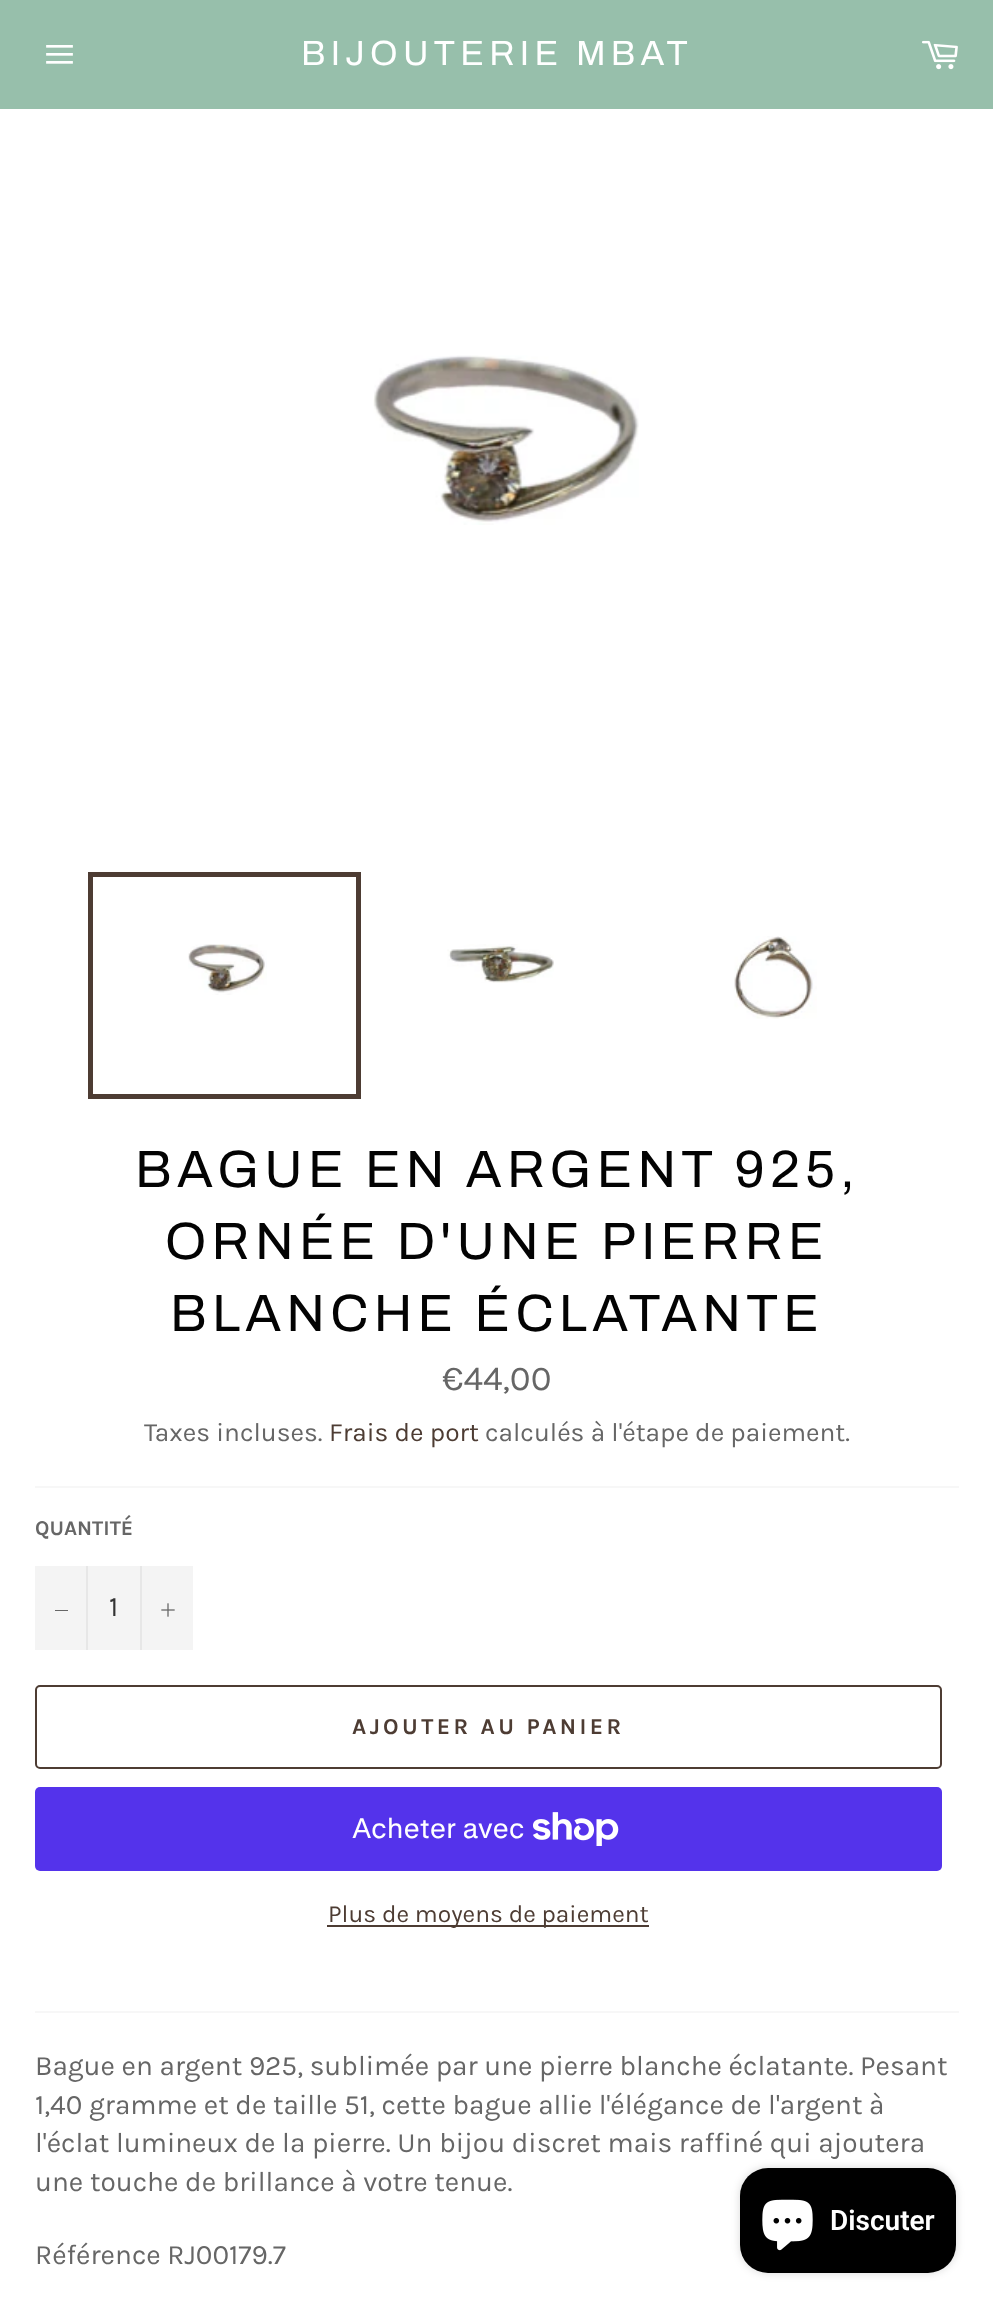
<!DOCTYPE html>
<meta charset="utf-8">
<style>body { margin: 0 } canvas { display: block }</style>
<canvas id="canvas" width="993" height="2310"></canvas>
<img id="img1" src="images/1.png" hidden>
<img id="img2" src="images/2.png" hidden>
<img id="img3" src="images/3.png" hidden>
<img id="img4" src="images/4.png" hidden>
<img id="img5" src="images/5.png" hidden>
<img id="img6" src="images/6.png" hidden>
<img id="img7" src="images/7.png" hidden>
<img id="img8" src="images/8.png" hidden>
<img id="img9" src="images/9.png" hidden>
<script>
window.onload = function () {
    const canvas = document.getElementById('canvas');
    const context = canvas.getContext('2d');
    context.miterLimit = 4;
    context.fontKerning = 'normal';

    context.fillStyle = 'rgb(151, 191, 171)';
    context.fillRect(0, 0, 993, 2310);
    context.drawImage(document.getElementById('img1'), 46, 45, 27, 19);
    context.drawImage(document.getElementById('img2'), 922, 40, 36, 30);
    context.fillStyle = 'rgb(255, 255, 255)';
    context.fillRect(0, 109, 993, 2201);
    context.drawImage(document.getElementById('img3'), 373, 355, 266, 170);
    context.drawImage(document.getElementById('img4'), 188, 944, 79, 51);
    context.strokeStyle = 'rgb(77, 60, 51)';
    context.lineWidth = 5;
    context.strokeRect(90.5, 874.5, 268, 222);
    context.drawImage(document.getElementById('img5'), 447, 944, 107, 39);
    context.drawImage(document.getElementById('img6'), 734, 936, 83, 83);
    context.fillStyle = 'rgb(247, 247, 247)';
    context.fillRect(35, 1486, 924, 2);
    context.fillStyle = 'rgb(244, 244, 244)';
    context.fillRect(35, 1566, 158, 84);
    context.fillStyle = 'rgb(231, 231, 231)';
    context.fillRect(86, 1566, 2, 84);
    context.fillStyle = 'rgb(102, 102, 102)';
    context.fillRect(55, 1610, 13, 1);
    context.fillStyle = 'rgb(231, 231, 231)';
    context.fillRect(140, 1566, 2, 84);
    context.drawImage(document.getElementById('img7'), 161, 1603, 14, 14);
    context.beginPath();
    context.roundRect(36, 1686, 905, 82, 4);
    context.lineWidth = 2;
    context.stroke();
    context.fillStyle = 'rgb(84, 51, 235)';
    context.beginPath();
    context.roundRect(35, 1787, 907, 84, 5);
    context.fill();
    context.drawImage(document.getElementById('img8'), 533, 1812, 86, 34);
    context.fillStyle = 'rgb(77, 60, 51)';
    context.fillRect(327, 1925, 322, 2);
    context.fillStyle = 'rgb(247, 247, 247)';
    context.fillRect(35, 2011, 924, 2);
    context.fillStyle = 'rgba(0, 0, 0, 0.15)';
    context.filter = 'blur(4.5px)';
    context.beginPath();
    context.roundRect(740, 2168, 216, 105, 28);
    context.fill();
    context.filter = 'none';
    context.fillStyle = 'rgb(0, 0, 0)';
    context.beginPath();
    context.roundRect(740, 2168, 216, 105, 28);
    context.fill();
    context.drawImage(document.getElementById('img9'), 762, 2199, 51, 52);
    context.letterSpacing = '5.25px';
    context.font = '35px Archivo';
    context.fillStyle = 'rgb(255, 255, 255)';
    context.fillText('BIJOUTERIE MBAT', 301, 65);
    context.font = '52.5px Archivo';
    context.fillStyle = 'rgb(3, 3, 3)';
    context.fillText('BAGUE EN ARGENT 925,', 135, 1187);
    context.fillText('ORNÉE D\'UNE PIERRE', 165, 1259);
    context.fillText('BLANCHE ÉCLATANTE', 170, 1331);
    context.letterSpacing = '0px';
    context.font = '35px Karla';
    context.fillStyle = 'rgb(102, 102, 102)';
    context.fillText('€44,00', 442, 1390);
    context.font = '26.25px Karla';
    context.fillText('Taxes incluses.', 144, 1441);
    context.fillStyle = 'rgb(77, 60, 51)';
    context.fillText('Frais de port', 329, 1441);
    context.fillStyle = 'rgb(102, 102, 102)';
    context.fillText('calculés à l\'étape de paiement.', 485, 1441);
    context.font = 'bold 21px Karla';
    context.fillText('QUANTITÉ', 35, 1535);
    context.font = '28px Karla';
    context.fillStyle = 'rgb(51, 51, 51)';
    context.fillText('1', 109, 1616);
    context.letterSpacing = '3.4px';
    context.font = 'bold 22.75px Karla';
    context.fillStyle = 'rgb(77, 60, 51)';
    context.fillText('AJOUTER AU PANIER', 352, 1734);
    context.letterSpacing = '0px';
    context.font = '28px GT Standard';
    context.fillStyle = 'rgb(255, 255, 255)';
    context.fillText('Acheter avec', 352, 1838);
    context.font = '24.5px Karla';
    context.fillStyle = 'rgb(77, 60, 51)';
    context.fillText('Plus de moyens de paiement', 328, 1922);
    context.font = '28px Karla';
    context.fillStyle = 'rgb(102, 102, 102)';
    context.fillText('Bague en argent 925, sublimée par une pierre blanche éclatante. Pesant', 35, 2075);
    context.fillText('1,40 gramme et de taille 51, cette bague allie l\'élégance de l\'argent à', 35, 2114);
    context.fillText('l\'éclat lumineux de la pierre. Un bijou discret mais raffiné qui ajoutera', 35, 2152);
    context.fillText('une touche de brillance à votre tenue.', 35, 2191);
    context.fillText('Référence RJ00179.7', 35, 2264);
    context.font = '600 28px Roboto';
    context.fillStyle = 'rgb(255, 255, 255)';
    context.fillText('Discuter', 830, 2230);
};
</script>
